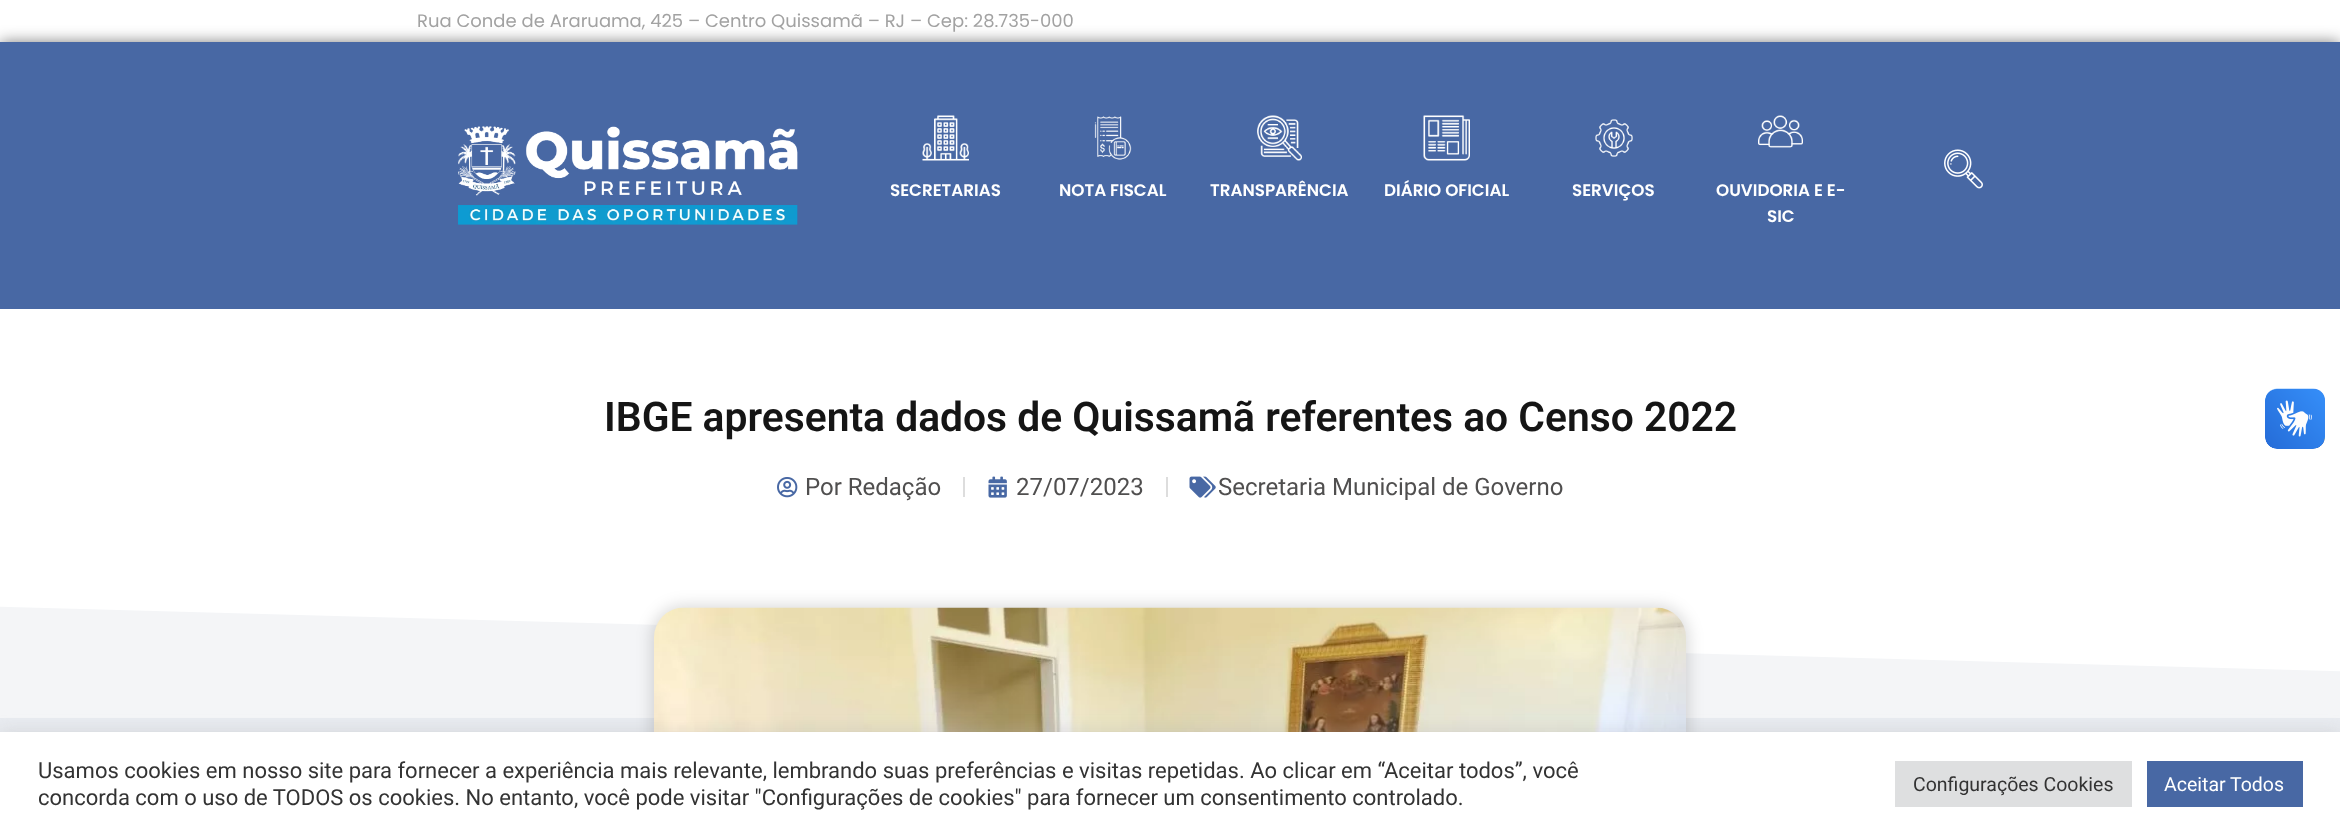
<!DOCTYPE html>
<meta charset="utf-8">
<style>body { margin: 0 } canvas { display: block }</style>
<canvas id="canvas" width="2340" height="835"></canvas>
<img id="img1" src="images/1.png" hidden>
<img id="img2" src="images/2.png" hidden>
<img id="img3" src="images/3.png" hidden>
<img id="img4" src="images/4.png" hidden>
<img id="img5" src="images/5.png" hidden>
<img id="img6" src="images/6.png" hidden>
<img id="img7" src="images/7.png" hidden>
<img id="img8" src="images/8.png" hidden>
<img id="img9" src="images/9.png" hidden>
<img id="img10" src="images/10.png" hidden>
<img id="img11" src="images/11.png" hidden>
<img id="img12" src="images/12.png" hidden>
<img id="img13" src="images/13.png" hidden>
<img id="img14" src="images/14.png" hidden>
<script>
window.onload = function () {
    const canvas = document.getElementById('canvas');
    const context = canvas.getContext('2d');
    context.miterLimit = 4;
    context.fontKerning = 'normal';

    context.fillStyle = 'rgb(225, 229, 235)';
    context.fillRect(0, 0, 2340, 835);
    context.fillStyle = 'rgb(240, 242, 245)';
    context.fillRect(0, 606, 2340, 112);
    context.fillStyle = 'rgb(255, 255, 255)';
    context.fillRect(0, 0, 2340, 42);
    context.fillStyle = 'rgba(0, 0, 0, 0.5)';
    context.filter = 'blur(7.5px)';
    context.beginPath();
    context.rect(0, 42, 2340, 267);
    context.fill();
    context.filter = 'none';
    context.fillStyle = 'rgb(72, 104, 164)';
    context.fillRect(0, 42, 2340, 267);
    context.drawImage(document.getElementById('img1'), 458, 126, 340, 99);
    context.drawImage(document.getElementById('img2'), 1944, 149, 39, 40);
    context.drawImage(document.getElementById('img3'), 922, 115, 47, 46);
    context.drawImage(document.getElementById('img4'), 1094, 116, 38, 44);
    context.drawImage(document.getElementById('img5'), 1257, 115, 45, 46);
    context.drawImage(document.getElementById('img6'), 1423, 115, 47, 46);
    context.drawImage(document.getElementById('img7'), 1595, 119, 38, 38);
    context.drawImage(document.getElementById('img8'), 1758, 115, 45, 33);
    context.fillStyle = 'rgb(255, 255, 255)';
    context.fillRect(0, 309, 2340, 251);
    context.drawImage(document.getElementById('img9'), 777, 477, 21, 21);
    context.fillStyle = 'rgb(221, 221, 221)';
    context.fillRect(963, 477, 2, 20);
    context.drawImage(document.getElementById('img10'), 988, 476, 19, 22);
    context.fillRect(1166, 477, 2, 20);
    context.drawImage(document.getElementById('img11'), 1189, 476, 27, 22);
    context.fillStyle = 'rgb(255, 255, 255)';
    context.beginPath();
    context.moveTo(-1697, 560);
    context.lineTo(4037, 560);
    context.lineTo(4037, 718);
    context.closePath();
    context.fill();
    context.fillStyle = 'rgba(255, 255, 255, 0.25)';
    context.beginPath();
    context.moveTo(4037, 560);
    context.lineTo(-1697, 560);
    context.lineTo(-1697, 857);
    context.lineTo(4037, 718);
    context.closePath();
    context.fill();
    context.fillStyle = 'rgba(0, 0, 0, 0.14)';
    context.filter = 'blur(7.5px)';
    context.beginPath();
    context.roundRect(651, 605, 1038, 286, 33);
    context.fill();
    context.filter = 'none';
    context.drawImage(document.getElementById('img12'), 654, 607, 1032, 125);
    context.drawImage(document.getElementById('img13'), 2265, 388, 60, 61);
    context.drawImage(document.getElementById('img14'), 2265, 389, 60, 60);
    context.fillStyle = 'rgba(172, 171, 171, 0.3)';
    context.filter = 'blur(7.5px)';
    context.beginPath();
    context.rect(0, 731, 2340, 103);
    context.fill();
    context.filter = 'none';
    context.fillStyle = 'rgb(255, 255, 255)';
    context.fillRect(0, 732, 2340, 103);
    context.fillStyle = 'rgb(222, 223, 224)';
    context.fillRect(1895, 761, 237, 46);
    context.fillStyle = 'rgb(72, 104, 164)';
    context.fillRect(2147, 761, 156, 46);
    context.font = '18px Poppins';
    context.fillStyle = 'rgb(162, 162, 162)';
    context.fillText('Rua Conde de Araruama, 425 – Centro Quissamã – RJ – Cep: 28.735-000', 417, 27);
    context.font = '600 16.75px Poppins';
    context.fillStyle = 'rgb(255, 255, 255)';
    context.fillText('SECRETARIAS', 890, 196);
    context.fillText('NOTA FISCAL', 1059, 196);
    context.fillText('TRANSPARÊNCIA', 1210, 196);
    context.fillText('DIÁRIO OFICIAL', 1384, 196);
    context.fillText('SERVIÇOS', 1572, 196);
    context.fillText('OUVIDORIA E E-', 1716, 196);
    context.fillText('SIC', 1767, 222);
    context.font = '600 40.8px Roboto';
    context.fillStyle = 'rgb(21, 21, 21)';
    context.fillText('IBGE apresenta dados de Quissamã referentes ao Censo 2022', 604, 431);
    context.font = '24px Roboto';
    context.fillStyle = 'rgb(80, 79, 79)';
    context.fillText('Por Redação', 805, 495);
    context.fillText('27/07/2023', 1016, 495);
    context.fillText('Secretaria Municipal de Governo', 1218, 495);
    context.font = '22px Roboto';
    context.fillStyle = 'rgb(51, 51, 51)';
    context.fillText('Usamos cookies em nosso site para fornecer a experiência mais relevante, lembrando suas preferências e visitas repetidas. Ao clicar em “Aceitar todos”, você', 38, 778);
    context.fillText('concorda com o uso de TODOS os cookies. No entanto, você pode visitar "Configurações de cookies" para fornecer um consentimento controlado.', 38, 805);
    context.font = '19.5px Roboto';
    context.fillText('Configurações Cookies', 1913, 791);
    context.fillStyle = 'rgb(255, 255, 255)';
    context.fillText('Aceitar Todos', 2164, 791);
};
</script>
